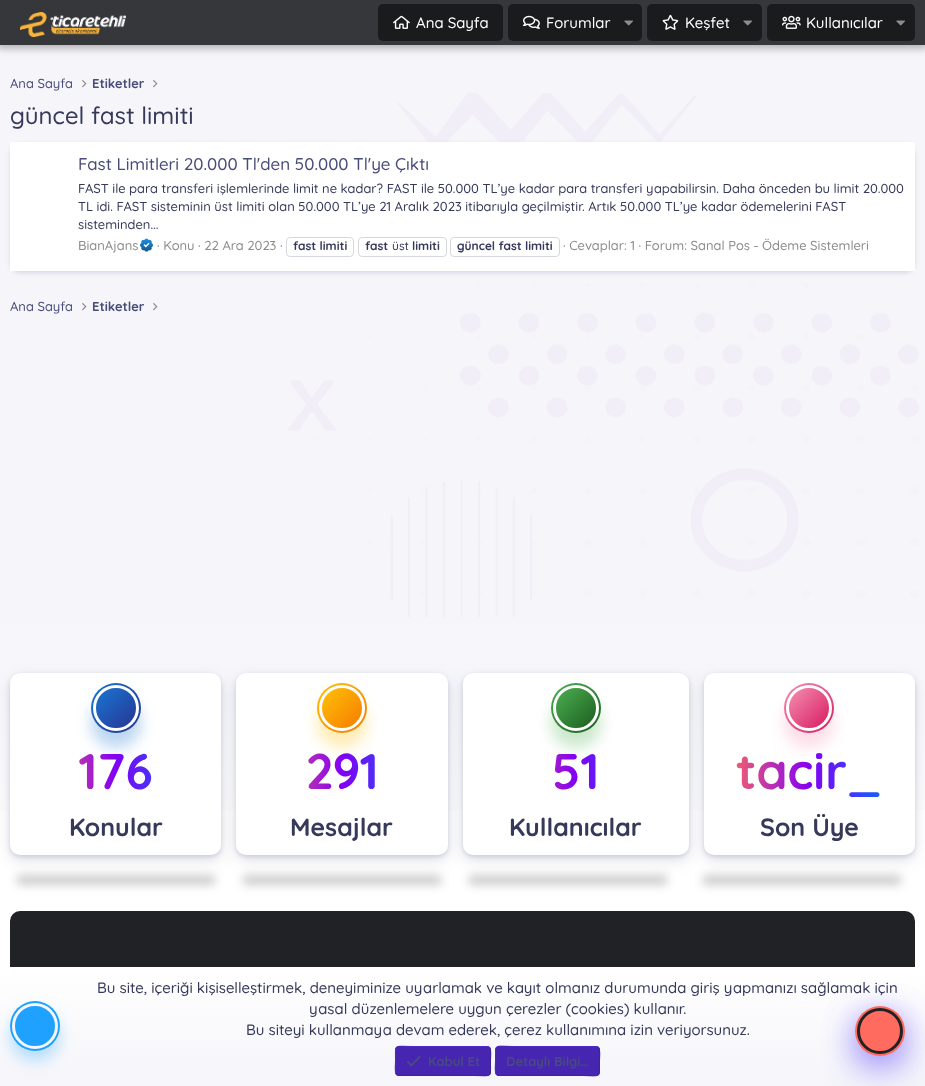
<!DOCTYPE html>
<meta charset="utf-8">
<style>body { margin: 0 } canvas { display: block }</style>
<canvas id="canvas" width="925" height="1086"></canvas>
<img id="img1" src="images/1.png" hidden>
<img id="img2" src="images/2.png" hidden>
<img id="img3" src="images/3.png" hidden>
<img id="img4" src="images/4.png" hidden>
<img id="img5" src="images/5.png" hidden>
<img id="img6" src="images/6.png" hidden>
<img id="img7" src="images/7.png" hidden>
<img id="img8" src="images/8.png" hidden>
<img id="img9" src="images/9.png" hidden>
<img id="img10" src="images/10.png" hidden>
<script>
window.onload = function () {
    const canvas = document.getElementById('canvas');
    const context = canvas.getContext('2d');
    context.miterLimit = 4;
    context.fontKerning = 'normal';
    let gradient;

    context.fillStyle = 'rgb(255, 255, 255)';
    context.fillRect(0, 0, 925, 1086);
    context.fillStyle = 'rgb(245, 245, 250)';
    context.fillRect(0, 45, 925, 572);
    context.fillStyle = 'rgba(0, 0, 0, 0.3)';
    context.filter = 'blur(4px)';
    context.beginPath();
    context.rect(-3, -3, 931, 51);
    context.fill();
    context.filter = 'none';
    context.fillStyle = 'rgb(53, 55, 59)';
    context.fillRect(0, 0, 925, 45);
    context.drawImage(document.getElementById('img1'), 20, 12, 106, 25);
    context.fillStyle = 'rgb(26, 27, 29)';
    context.beginPath();
    context.roundRect(378, 4, 125, 37, 5);
    context.fill();
    context.drawImage(document.getElementById('img2'), 393, 15, 17, 14);
    context.beginPath();
    context.roundRect(508, 4, 134, 37, 5);
    context.fill();
    context.drawImage(document.getElementById('img3'), 523, 15, 17, 14);
    context.drawImage(document.getElementById('img4'), 624, 20, 9, 6);
    context.beginPath();
    context.roundRect(647, 4, 115, 37, 5);
    context.fill();
    context.drawImage(document.getElementById('img5'), 662, 14, 17, 16);
    context.drawImage(document.getElementById('img4'), 743, 20, 9, 6);
    context.beginPath();
    context.roundRect(767, 4, 148, 37, 5);
    context.fill();
    context.drawImage(document.getElementById('img6'), 782, 15, 19, 14);
    context.drawImage(document.getElementById('img4'), 896, 20, 9, 6);
    context.drawImage(document.getElementById('img7'), 288, 93, 631, 524);
    context.drawImage(document.getElementById('img8'), 82, 80, 5, 8);
    context.drawImage(document.getElementById('img8'), 153, 80, 5, 8);
    context.fillStyle = 'rgba(93, 100, 148, 0.2)';
    context.filter = 'blur(2px)';
    context.beginPath();
    context.roundRect(10, 144, 905, 129, 10);
    context.fill();
    context.filter = 'none';
    context.fillStyle = 'rgb(255, 255, 255)';
    context.fillRect(10, 142, 905, 129);
    context.drawImage(document.getElementById('img9'), 140, 238, 13, 14);
    context.beginPath();
    context.roundRect(286.5, 237.5, 67, 19, 3.5);
    context.strokeStyle = 'rgb(215, 215, 222)';
    context.stroke();
    context.beginPath();
    context.roundRect(358.5, 237.5, 88, 19, 3.5);
    context.stroke();
    context.beginPath();
    context.roundRect(450.5, 237.5, 109, 19, 3.5);
    context.stroke();
    context.drawImage(document.getElementById('img8'), 82, 303, 5, 8);
    context.drawImage(document.getElementById('img8'), 153, 303, 5, 8);
    gradient = context.createLinearGradient(463, 617, 463, 875);
    gradient.addColorStop(0, 'rgb(245, 245, 250)');
    gradient.addColorStop(1, 'rgb(255, 255, 255)');
    context.fillStyle = gradient;
    context.fillRect(0, 617, 925, 193);
    context.fillStyle = 'rgba(93, 100, 148, 0.2)';
    context.filter = 'blur(2px)';
    context.beginPath();
    context.roundRect(10, 675, 211, 182, 10);
    context.fill();
    context.filter = 'none';
    context.fillStyle = 'rgba(37, 44, 97, 0.15)';
    context.filter = 'blur(7.5px)';
    context.beginPath();
    context.roundRect(10, 678, 211, 182, 10);
    context.fill();
    context.filter = 'none';
    context.fillStyle = 'rgb(255, 255, 255)';
    context.beginPath();
    context.roundRect(10, 673, 211, 182, 10);
    context.fill();
    context.fillStyle = 'rgba(25, 118, 210, 0.3)';
    context.filter = 'blur(7.5px)';
    context.beginPath();
    context.roundRect(91, 698, 50, 50, 25);
    context.fill();
    context.filter = 'none';
    gradient = context.createLinearGradient(91, 683, 141, 733);
    gradient.addColorStop(0, 'rgb(25, 118, 210)');
    gradient.addColorStop(1, 'rgb(40, 53, 147)');
    context.fillStyle = gradient;
    context.beginPath();
    context.arc(116, 708, 25, 0, 2 * Math.PI);
    context.fill();
    context.save();
    context.beginPath();
    context.roundRect(93, 685, 46, 46, 23);
    context.clip();
    gradient = context.createLinearGradient(96, 688, 136, 728);
    gradient.addColorStop(0, 'rgb(25, 118, 210)');
    gradient.addColorStop(1, 'rgb(40, 53, 147)');
    context.fillStyle = gradient;
    context.fillRect(96, 688, 40, 40);
    context.restore();
    context.beginPath();
    context.arc(116, 708, 21.5, 0, 2 * Math.PI);
    context.strokeStyle = 'rgb(255, 255, 255)';
    context.lineWidth = 3;
    context.stroke();
    context.fillStyle = 'rgba(0, 0, 0, 0.2)';
    context.filter = 'blur(5px)';
    context.beginPath();
    context.roundRect(16, 875, 200, 10, 5);
    context.fill();
    context.filter = 'none';
    context.fillStyle = 'rgba(93, 100, 148, 0.2)';
    context.filter = 'blur(2px)';
    context.beginPath();
    context.roundRect(236, 675, 212, 182, 10);
    context.fill();
    context.filter = 'none';
    context.fillStyle = 'rgba(37, 44, 97, 0.15)';
    context.filter = 'blur(7.5px)';
    context.beginPath();
    context.roundRect(236, 678, 212, 182, 10);
    context.fill();
    context.filter = 'none';
    context.fillStyle = 'rgb(255, 255, 255)';
    context.beginPath();
    context.roundRect(236, 673, 212, 182, 10);
    context.fill();
    context.fillStyle = 'rgba(255, 193, 7, 0.3)';
    context.filter = 'blur(7.5px)';
    context.beginPath();
    context.roundRect(317, 698, 50, 50, 25);
    context.fill();
    context.filter = 'none';
    gradient = context.createLinearGradient(317, 683, 367, 733);
    gradient.addColorStop(0, 'rgb(255, 193, 7)');
    gradient.addColorStop(1, 'rgb(245, 124, 0)');
    context.fillStyle = gradient;
    context.beginPath();
    context.arc(342, 708, 25, 0, 2 * Math.PI);
    context.fill();
    context.save();
    context.beginPath();
    context.roundRect(319, 685, 46, 46, 23);
    context.clip();
    gradient = context.createLinearGradient(322, 688, 362, 728);
    gradient.addColorStop(0, 'rgb(255, 193, 7)');
    gradient.addColorStop(1, 'rgb(245, 124, 0)');
    context.fillStyle = gradient;
    context.fillRect(322, 688, 40, 40);
    context.restore();
    context.beginPath();
    context.arc(342, 708, 21.5, 0, 2 * Math.PI);
    context.stroke();
    context.fillStyle = 'rgba(0, 0, 0, 0.2)';
    context.filter = 'blur(5px)';
    context.beginPath();
    context.roundRect(242, 875, 200, 10, 5);
    context.fill();
    context.filter = 'none';
    context.fillStyle = 'rgba(93, 100, 148, 0.2)';
    context.filter = 'blur(2px)';
    context.beginPath();
    context.roundRect(463, 675, 226, 182, 10);
    context.fill();
    context.filter = 'none';
    context.fillStyle = 'rgba(37, 44, 97, 0.15)';
    context.filter = 'blur(7.5px)';
    context.beginPath();
    context.roundRect(463, 678, 226, 182, 10);
    context.fill();
    context.filter = 'none';
    context.fillStyle = 'rgb(255, 255, 255)';
    context.beginPath();
    context.roundRect(463, 673, 226, 182, 10);
    context.fill();
    context.fillStyle = 'rgba(76, 175, 80, 0.3)';
    context.filter = 'blur(7.5px)';
    context.beginPath();
    context.roundRect(551, 698, 50, 50, 25);
    context.fill();
    context.filter = 'none';
    gradient = context.createLinearGradient(551, 683, 601, 733);
    gradient.addColorStop(0, 'rgb(76, 175, 80)');
    gradient.addColorStop(1, 'rgb(27, 94, 32)');
    context.fillStyle = gradient;
    context.beginPath();
    context.arc(576, 708, 25, 0, 2 * Math.PI);
    context.fill();
    context.save();
    context.beginPath();
    context.roundRect(553, 685, 46, 46, 23);
    context.clip();
    gradient = context.createLinearGradient(556, 688, 596, 728);
    gradient.addColorStop(0, 'rgb(76, 175, 80)');
    gradient.addColorStop(1, 'rgb(27, 94, 32)');
    context.fillStyle = gradient;
    context.fillRect(556, 688, 40, 40);
    context.restore();
    context.beginPath();
    context.arc(576, 708, 21.5, 0, 2 * Math.PI);
    context.stroke();
    context.fillStyle = 'rgba(0, 0, 0, 0.2)';
    context.filter = 'blur(5px)';
    context.beginPath();
    context.roundRect(468, 875, 200, 10, 5);
    context.fill();
    context.filter = 'none';
    context.fillStyle = 'rgba(93, 100, 148, 0.2)';
    context.filter = 'blur(2px)';
    context.beginPath();
    context.roundRect(704, 675, 211, 182, 10);
    context.fill();
    context.filter = 'none';
    context.fillStyle = 'rgba(37, 44, 97, 0.15)';
    context.filter = 'blur(7.5px)';
    context.beginPath();
    context.roundRect(704, 678, 211, 182, 10);
    context.fill();
    context.filter = 'none';
    context.fillStyle = 'rgb(255, 255, 255)';
    context.beginPath();
    context.roundRect(704, 673, 211, 182, 10);
    context.fill();
    context.fillStyle = 'rgba(244, 143, 177, 0.3)';
    context.filter = 'blur(7.5px)';
    context.beginPath();
    context.roundRect(784, 698, 50, 50, 25);
    context.fill();
    context.filter = 'none';
    gradient = context.createLinearGradient(784, 683, 834, 733);
    gradient.addColorStop(0, 'rgb(244, 143, 177)');
    gradient.addColorStop(1, 'rgb(216, 27, 96)');
    context.fillStyle = gradient;
    context.beginPath();
    context.arc(809, 708, 25, 0, 2 * Math.PI);
    context.fill();
    context.save();
    context.beginPath();
    context.roundRect(786, 685, 46, 46, 23);
    context.clip();
    gradient = context.createLinearGradient(789, 688, 829, 728);
    gradient.addColorStop(0, 'rgb(244, 143, 177)');
    gradient.addColorStop(1, 'rgb(216, 27, 96)');
    context.fillStyle = gradient;
    context.fillRect(789, 688, 40, 40);
    context.restore();
    context.beginPath();
    context.arc(809, 708, 21.5, 0, 2 * Math.PI);
    context.stroke();
    context.fillStyle = 'rgba(0, 0, 0, 0.2)';
    context.filter = 'blur(5px)';
    context.beginPath();
    context.roundRect(702, 875, 200, 10, 5);
    context.fill();
    context.filter = 'none';
    context.fillStyle = 'rgb(32, 34, 38)';
    context.beginPath();
    context.roundRect(10, 911, 905, 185, 10);
    context.fill();
    gradient = context.createLinearGradient(463, 967, 463, 1086);
    gradient.addColorStop(0, 'rgb(255, 255, 255)');
    gradient.addColorStop(1, 'rgb(245, 245, 250)');
    context.fillStyle = gradient;
    context.fillRect(0, 967, 925, 119);
    context.fillStyle = 'rgb(76, 48, 249)';
    context.filter = 'blur(20px)';
    context.beginPath();
    context.roundRect(865, 1026, 30, 30, 15);
    context.fill();
    context.filter = 'none';
    context.filter = 'blur(20px)';
    context.beginPath();
    context.roundRect(865, 1026, 30, 30, 15);
    context.fill();
    context.filter = 'none';
    gradient = context.createLinearGradient(855, 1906, 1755, 1006);
    gradient.addColorStop(0, 'rgb(0, 114, 255)');
    gradient.addColorStop(0.2, 'rgb(130, 0, 244)');
    gradient.addColorStop(0.4, 'rgb(255, 108, 95)');
    gradient.addColorStop(0.6, 'rgb(255, 108, 95)');
    gradient.addColorStop(0.8, 'rgb(130, 0, 244)');
    gradient.addColorStop(1, 'rgb(0, 114, 255)');
    context.fillStyle = gradient;
    context.beginPath();
    context.arc(880, 1031, 25, 0, 2 * Math.PI);
    context.fill();
    context.beginPath();
    context.arc(880, 1031, 21.5, 0, 2 * Math.PI);
    context.strokeStyle = 'rgb(32, 34, 38)';
    context.stroke();
    context.fillStyle = 'rgba(31, 162, 255, 0.3)';
    context.filter = 'blur(7.5px)';
    context.beginPath();
    context.roundRect(10, 1011, 50, 50, 25);
    context.fill();
    context.filter = 'none';
    context.fillStyle = 'rgb(31, 162, 255)';
    context.beginPath();
    context.arc(35, 1026, 25, 0, 2 * Math.PI);
    context.fill();
    context.beginPath();
    context.arc(35, 1026, 21.5, 0, 2 * Math.PI);
    context.strokeStyle = 'rgb(245, 245, 250)';
    context.stroke();
    context.fillStyle = 'rgb(70, 37, 177)';
    context.beginPath();
    context.roundRect(395, 1046, 96, 30, 4);
    context.fill();
    context.beginPath();
    context.moveTo(489.5, 1047.5);
    context.bezierCurveTo(491.5, 1049.5, 490.5, 1058, 490.5, 1061);
    context.bezierCurveTo(490.5, 1079, 492.5, 1075.5, 472.5, 1075.5);
    context.lineTo(399, 1075.5);
    context.lineTo(396.5, 1074.5);
    context.strokeStyle = 'rgb(62, 33, 156)';
    context.lineWidth = 1;
    context.stroke();
    context.beginPath();
    context.moveTo(396.5, 1074.5);
    context.bezierCurveTo(394.5, 1072.5, 395.5, 1064, 395.5, 1061);
    context.bezierCurveTo(395.5, 1043, 393.5, 1046.5, 413.5, 1046.5);
    context.lineTo(487, 1046.5);
    context.lineTo(489.5, 1047.5);
    context.strokeStyle = 'rgb(78, 41, 198)';
    context.stroke();
    context.drawImage(document.getElementById('img10'), 407, 1055, 14, 12);
    context.beginPath();
    context.roundRect(495, 1046, 105, 30, 4);
    context.fill();
    context.beginPath();
    context.moveTo(598.5, 1047.5);
    context.bezierCurveTo(600.5, 1049.5, 599.5, 1058, 599.5, 1061);
    context.bezierCurveTo(599.5, 1079.5, 601, 1075.5, 580, 1075.5);
    context.lineTo(499, 1075.5);
    context.lineTo(496.5, 1074.5);
    context.strokeStyle = 'rgb(62, 33, 156)';
    context.stroke();
    context.beginPath();
    context.moveTo(496.5, 1074.5);
    context.bezierCurveTo(494.5, 1072.5, 495.5, 1064, 495.5, 1061);
    context.bezierCurveTo(495.5, 1042.5, 494, 1046.5, 515, 1046.5);
    context.lineTo(596, 1046.5);
    context.lineTo(598.5, 1047.5);
    context.strokeStyle = 'rgb(78, 41, 198)';
    context.stroke();
    context.font = '300 15px "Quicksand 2"';
    context.fillStyle = 'rgb(255, 255, 255)';
    context.fillText('Ana Sayfa', 416, 28);
    context.fillText('Forumlar', 546, 28);
    context.fillText('Keşfet', 685, 28);
    context.fillText('Kullanıcılar', 806, 28);
    context.font = '300 13px "Quicksand 2"';
    context.fillStyle = 'rgb(72, 76, 122)';
    context.fillText('Ana Sayfa', 10, 88);
    context.font = '300 13px Quicksand';
    context.fillText('Etiketler', 92, 88);
    context.font = '300 24px "Quicksand 2"';
    context.fillStyle = 'rgb(54, 57, 90)';
    context.fillText('güncel fast limiti', 10, 124);
    context.font = '300 17px "Quicksand 2"';
    context.fillStyle = 'rgb(72, 76, 122)';
    context.fillText('Fast Limitleri 20.000 Tl\'den 50.000 Tl\'ye Çıktı', 78, 170);
    context.font = '300 13px "Quicksand 2"';
    context.fillStyle = 'rgb(54, 57, 90)';
    context.fillText('FAST ile para transferi işlemlerinde limit ne kadar? FAST ile 50.000 TL’ye kadar para transferi yapabilirsin. Daha önceden bu limit 20.000', 78, 193);
    context.fillText('TL idi. FAST sisteminin üst limiti olan 50.000 TL’ye 21 Aralık 2023 itibarıyla geçilmiştir. Artık 50.000 TL’ye kadar ödemelerini FAST', 78, 211);
    context.fillText('sisteminden...', 78, 229);
    context.fillStyle = 'rgb(140, 140, 140)';
    context.fillText('BianAjans', 78, 250);
    context.fillText('· Konu · 22 Ara 2023 ·', 157, 250);
    context.font = '300 12px Quicksand';
    context.fillStyle = 'rgb(54, 57, 90)';
    context.fillText('fast limiti', 293, 250);
    context.fillText('fast', 365, 250);
    context.font = '300 12px "Quicksand 2"';
    context.fillText('üst', 392, 250);
    context.font = '300 12px Quicksand';
    context.fillText('limiti', 412, 250);
    context.fillText('güncel fast limiti', 457, 250);
    context.font = '300 13px "Quicksand 2"';
    context.fillStyle = 'rgb(140, 140, 140)';
    context.fillText('· Cevaplar: 1 · Forum: Sanal Pos - Ödeme Sistemleri', 563, 250);
    context.fillStyle = 'rgb(72, 76, 122)';
    context.fillText('Ana Sayfa', 10, 311);
    context.font = '300 13px Quicksand';
    context.fillText('Etiketler', 92, 311);
    context.font = '300 50px Quicksand';
    gradient = context.createLinearGradient(30, 770, 201, 770);
    gradient.addColorStop(0, 'rgb(255, 108, 95)');
    gradient.addColorStop(0.5, 'rgb(130, 0, 244)');
    gradient.addColorStop(1, 'rgb(0, 114, 255)');
    context.fillStyle = gradient;
    context.fillText('176', 79, 789);
    context.font = '300 25px Quicksand';
    context.fillStyle = 'rgb(54, 57, 90)';
    context.fillText('Konular', 69, 836);
    context.font = '300 50px Quicksand';
    gradient = context.createLinearGradient(256, 770, 428, 770);
    gradient.addColorStop(0, 'rgb(255, 108, 95)');
    gradient.addColorStop(0.5, 'rgb(130, 0, 244)');
    gradient.addColorStop(1, 'rgb(0, 114, 255)');
    context.fillStyle = gradient;
    context.fillText('291', 306, 789);
    context.font = '300 25px Quicksand';
    context.fillStyle = 'rgb(54, 57, 90)';
    context.fillText('Mesajlar', 290, 836);
    context.font = '300 50px Quicksand';
    gradient = context.createLinearGradient(483, 770, 669, 770);
    gradient.addColorStop(0, 'rgb(255, 108, 95)');
    gradient.addColorStop(0.5, 'rgb(130, 0, 244)');
    gradient.addColorStop(1, 'rgb(0, 114, 255)');
    context.fillStyle = gradient;
    context.fillText('51', 552, 789);
    context.font = '300 25px Quicksand';
    context.fillStyle = 'rgb(54, 57, 90)';
    context.fillText('Kullanıcılar', 509, 836);
    context.font = '300 50px Quicksand';
    gradient = context.createLinearGradient(724, 770, 895, 770);
    gradient.addColorStop(0, 'rgb(255, 108, 95)');
    gradient.addColorStop(0.5, 'rgb(130, 0, 244)');
    gradient.addColorStop(1, 'rgb(0, 114, 255)');
    context.fillStyle = gradient;
    context.fillText('tacir_', 736, 789);
    context.font = '300 25px Quicksand';
    context.fillStyle = 'rgb(54, 57, 90)';
    context.fillText('Son Üye', 760, 836);
    context.font = '300 15px "Quicksand 2"';
    context.fillText('Bu site, içeriği kişiselleştirmek, deneyiminize uyarlamak ve kayıt olmanız durumunda giriş yapmanızı sağlamak için', 97, 993);
    context.fillText('yasal düzenlemelere uygun çerezler (cookies) kullanır.', 309, 1014);
    context.fillText('Bu siteyi kullanmaya devam ederek, çerez kullanımına izin veriyorsunuz.', 246, 1035);
    context.font = '300 13px Quicksand';
    context.fillStyle = 'rgb(72, 76, 122)';
    context.fillText('Kabul Et', 428, 1066);
    context.fillText('Detaylı Bilgi…', 506, 1066);
};
</script>
